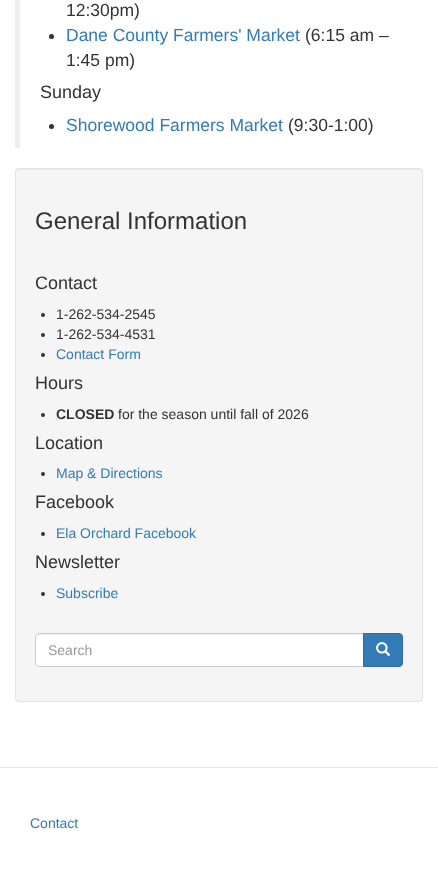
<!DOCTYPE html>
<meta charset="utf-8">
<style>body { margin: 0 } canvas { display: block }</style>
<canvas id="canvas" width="438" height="879"></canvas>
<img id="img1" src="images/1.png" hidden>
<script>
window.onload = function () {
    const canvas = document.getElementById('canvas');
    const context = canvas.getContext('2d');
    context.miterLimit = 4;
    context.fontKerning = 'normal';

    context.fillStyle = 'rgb(255, 255, 255)';
    context.fillRect(0, 0, 438, 879);
    context.fillStyle = 'rgb(238, 238, 238)';
    context.fillRect(15, 0, 5, 148);
    context.fillStyle = 'rgb(51, 51, 51)';
    context.beginPath();
    context.arc(51.5, 36.5, 2.5, 0, 2 * Math.PI);
    context.fill();
    context.beginPath();
    context.arc(51.5, 126.5, 2.5, 0, 2 * Math.PI);
    context.fill();
    context.fillStyle = 'rgb(245, 245, 245)';
    context.beginPath();
    context.roundRect(15, 168, 408, 534, 4);
    context.fill();
    context.fillStyle = 'rgb(233, 233, 233)';
    context.beginPath();
    context.moveTo(19, 170);
    context.lineTo(419, 170);
    context.bezierCurveTo(421, 170, 422, 171, 422, 173);
    context.bezierCurveTo(422, 171, 421, 169, 419, 169);
    context.lineTo(19, 169);
    context.bezierCurveTo(17, 169, 16, 171, 16, 173);
    context.bezierCurveTo(16, 171, 17, 170, 19, 170);
    context.closePath();
    context.fill();
    context.beginPath();
    context.roundRect(15.5, 168.5, 407, 533, 3.5);
    context.strokeStyle = 'rgb(227, 227, 227)';
    context.stroke();
    context.fillStyle = 'rgb(51, 51, 51)';
    context.beginPath();
    context.arc(43, 315, 2, 0, 2 * Math.PI);
    context.fill();
    context.beginPath();
    context.arc(43, 335, 2, 0, 2 * Math.PI);
    context.fill();
    context.beginPath();
    context.arc(43, 355, 2, 0, 2 * Math.PI);
    context.fill();
    context.beginPath();
    context.arc(43, 415, 2, 0, 2 * Math.PI);
    context.fill();
    context.beginPath();
    context.arc(43, 474, 2, 0, 2 * Math.PI);
    context.fill();
    context.beginPath();
    context.arc(43, 534, 2, 0, 2 * Math.PI);
    context.fill();
    context.beginPath();
    context.arc(43, 594, 2, 0, 2 * Math.PI);
    context.fill();
    context.fillStyle = 'rgb(255, 255, 255)';
    context.beginPath();
    context.roundRect(35, 633, 329, 34, [4, 0, 0, 4]);
    context.fill();
    context.fillStyle = 'rgb(236, 236, 236)';
    context.beginPath();
    context.moveTo(39, 635);
    context.lineTo(363, 635);
    context.lineTo(363, 634);
    context.lineTo(39, 634);
    context.bezierCurveTo(37, 634, 36, 636, 36, 638);
    context.bezierCurveTo(36, 636, 37, 635, 39, 635);
    context.closePath();
    context.fill();
    context.beginPath();
    context.roundRect(35.5, 633.5, 328, 33, [3.5, 0, 0, 3.5]);
    context.strokeStyle = 'rgb(204, 204, 204)';
    context.stroke();
    context.fillStyle = 'rgb(51, 122, 183)';
    context.beginPath();
    context.roundRect(363.5, 633.5, 39, 33, [0, 3.5, 3.5, 0]);
    context.fill();
    context.strokeStyle = 'rgb(46, 109, 164)';
    context.stroke();
    context.drawImage(document.getElementById('img1'), 376, 642, 15, 14);
    context.fillStyle = 'rgb(229, 229, 229)';
    context.fillRect(0, 767, 438, 1);
    context.font = '17.5px Liberation Sans';
    context.fillStyle = 'rgb(51, 51, 51)';
    context.fillText('12:30pm)', 66, 16);
    context.fillStyle = 'rgb(51, 122, 183)';
    context.fillText('Dane County Farmers\' Market', 66, 41);
    context.fillStyle = 'rgb(51, 51, 51)';
    context.fillText('(6:15 am –', 305, 41);
    context.fillText('1:45 pm)', 66, 66);
    context.font = '18px Liberation Sans';
    context.fillText('Sunday', 40, 98);
    context.font = '17.5px Liberation Sans';
    context.fillStyle = 'rgb(51, 122, 183)';
    context.fillText('Shorewood Farmers Market', 66, 131);
    context.fillStyle = 'rgb(51, 51, 51)';
    context.fillText('(9:30-1:00)', 288, 131);
    context.font = '24px Liberation Sans';
    context.fillText('General Information', 35, 229);
    context.font = '18px Liberation Sans';
    context.fillText('Contact', 35, 289);
    context.font = '14px Liberation Sans';
    context.fillText('1-262-534-2545', 56, 319);
    context.fillText('1-262-534-4531', 56, 339);
    context.fillStyle = 'rgb(51, 122, 183)';
    context.fillText('Contact Form', 56, 359);
    context.font = '18px Liberation Sans';
    context.fillStyle = 'rgb(51, 51, 51)';
    context.fillText('Hours', 35, 389);
    context.font = 'bold 14px Liberation Sans';
    context.fillText('CLOSED', 56, 419);
    context.font = '14px Liberation Sans';
    context.fillText('for the season until fall of 2026', 118, 419);
    context.font = '18px Liberation Sans';
    context.fillText('Location', 35, 449);
    context.font = '14px Liberation Sans';
    context.fillStyle = 'rgb(51, 122, 183)';
    context.fillText('Map & Directions', 56, 478);
    context.font = '18px Liberation Sans';
    context.fillStyle = 'rgb(51, 51, 51)';
    context.fillText('Facebook', 35, 508);
    context.font = '14px Liberation Sans';
    context.fillStyle = 'rgb(51, 122, 183)';
    context.fillText('Ela Orchard Facebook', 56, 538);
    context.font = '18px Liberation Sans';
    context.fillStyle = 'rgb(51, 51, 51)';
    context.fillText('Newsletter', 35, 568);
    context.font = '14px Liberation Sans';
    context.fillStyle = 'rgb(51, 122, 183)';
    context.fillText('Subscribe', 56, 598);
    context.fillStyle = 'rgb(153, 153, 153)';
    context.fillText('Search', 48, 655);
    context.fillStyle = 'rgb(51, 122, 183)';
    context.fillText('Contact', 30, 828);
};
</script>
